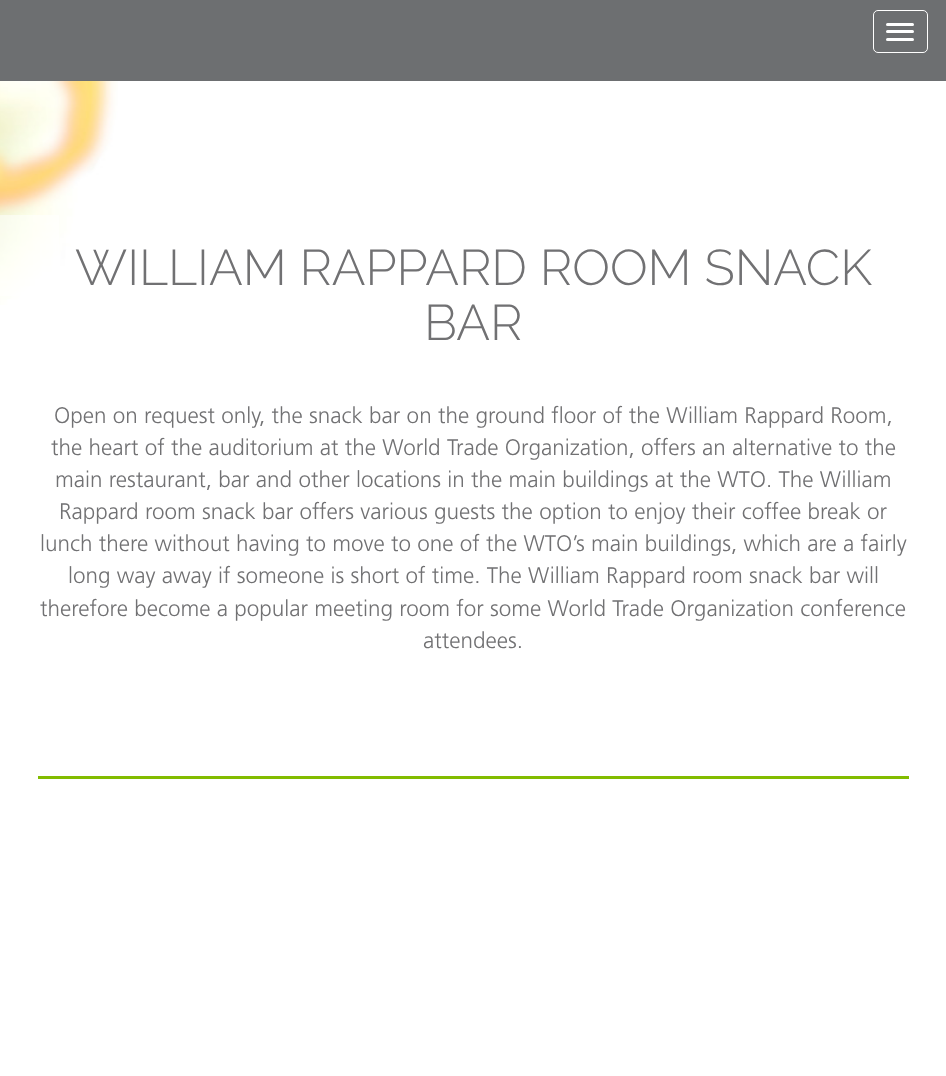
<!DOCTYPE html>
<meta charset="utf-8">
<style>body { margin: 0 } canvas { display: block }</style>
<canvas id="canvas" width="946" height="1076"></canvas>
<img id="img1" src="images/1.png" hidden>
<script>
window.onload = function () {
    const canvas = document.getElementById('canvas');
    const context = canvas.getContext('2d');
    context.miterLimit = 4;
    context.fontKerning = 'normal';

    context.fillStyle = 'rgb(255, 255, 255)';
    context.fillRect(0, 0, 946, 1076);
    context.fillStyle = 'rgb(109, 111, 113)';
    context.fillRect(0, 0, 946, 81);
    context.beginPath();
    context.roundRect(873.5, 10.5, 54, 42, 4.5);
    context.strokeStyle = 'rgb(255, 255, 255)';
    context.stroke();
    context.fillStyle = 'rgb(255, 255, 255)';
    context.beginPath();
    context.roundRect(886, 23, 28, 3, 1.5);
    context.fill();
    context.beginPath();
    context.roundRect(886, 30, 28, 3, 1.5);
    context.fill();
    context.beginPath();
    context.roundRect(886, 38, 28, 3, 1.5);
    context.fill();
    context.drawImage(document.getElementById('img1'), 0, 81, 118, 224);
    context.fillStyle = 'rgba(255, 255, 255, 0.5)';
    context.fillRect(0, 215, 59, 81);
    context.fillStyle = 'rgb(130, 188, 0)';
    context.fillRect(38, 776, 871, 3);
    context.font = '300 50px Raleway';
    context.fillStyle = 'rgb(113, 113, 115)';
    context.fillText('WILLIAM RAPPARD ROOM SNACK', 75, 285);
    context.fillText('BAR', 424, 340);
    context.font = '300 22.5px "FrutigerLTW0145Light"';
    context.fillText('Open on request only, the snack bar on the ground floor of the William Rappard Room,', 54, 423);
    context.fillText('the heart of the auditorium at the World Trade Organization, offers an alternative to the', 51, 455);
    context.fillText('main restaurant, bar and other locations in the main buildings at the WTO. The William', 55, 487);
    context.fillText('Rappard room snack bar offers various guests the option to enjoy their coffee break or', 59, 519);
    context.fillText('lunch there without having to move to one of the WTO’s main buildings, which are a fairly', 40, 551);
    context.fillText('long way away if someone is short of time. The William Rappard room snack bar will', 68, 583);
    context.fillText('therefore become a popular meeting room for some World Trade Organization conference', 40, 616);
    context.fillText('attendees.', 423, 648);
};
</script>
